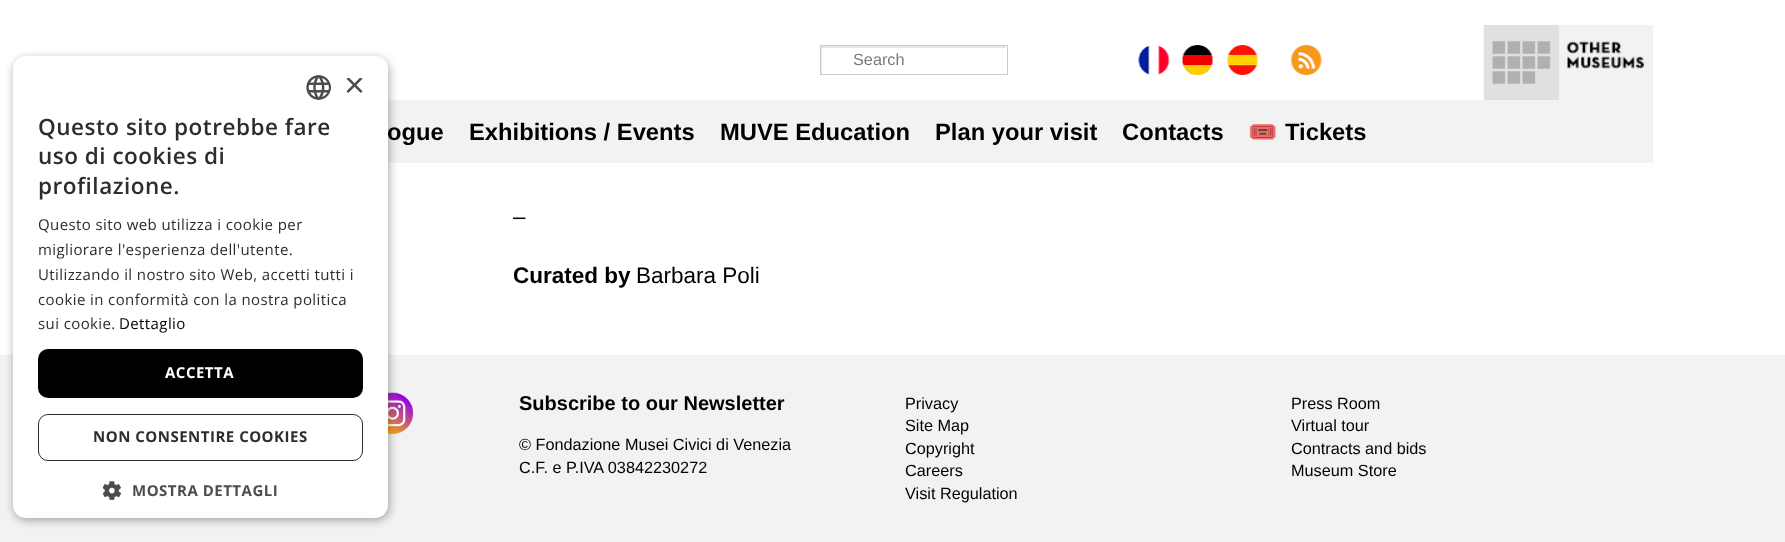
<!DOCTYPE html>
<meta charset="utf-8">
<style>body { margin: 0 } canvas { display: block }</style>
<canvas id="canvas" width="1785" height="542"></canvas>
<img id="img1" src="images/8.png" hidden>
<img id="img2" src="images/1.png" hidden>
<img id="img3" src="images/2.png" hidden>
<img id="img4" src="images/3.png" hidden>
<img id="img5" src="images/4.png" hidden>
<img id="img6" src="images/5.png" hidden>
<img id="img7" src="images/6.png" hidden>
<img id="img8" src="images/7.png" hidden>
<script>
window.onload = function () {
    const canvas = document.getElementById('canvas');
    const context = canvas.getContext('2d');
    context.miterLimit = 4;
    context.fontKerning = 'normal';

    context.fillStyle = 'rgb(255, 255, 255)';
    context.fillRect(0, 0, 1785, 542);
    context.fillStyle = 'rgb(242, 242, 242)';
    context.fillRect(388, 100, 1265, 63);
    context.fillRect(0, 355, 1785, 187);
    context.drawImage(document.getElementById('img1'), 388, 392, 25, 42);
    context.fillStyle = 'rgba(0, 0, 0, 0.35)';
    context.filter = 'blur(5px)';
    context.beginPath();
    context.roundRect(14, 59, 375, 461, 13);
    context.fill();
    context.filter = 'none';
    context.fillStyle = 'rgb(255, 255, 255)';
    context.beginPath();
    context.roundRect(13, 56, 375, 462, 13);
    context.fill();
    context.drawImage(document.getElementById('img2'), 306, 75, 25, 25);
    context.fillStyle = 'rgb(0, 0, 0)';
    context.beginPath();
    context.roundRect(38, 349, 325, 49, 10);
    context.fill();
    context.beginPath();
    context.roundRect(38.5, 414.5, 324, 46, 9.5);
    context.strokeStyle = 'rgb(45, 45, 45)';
    context.stroke();
    context.drawImage(document.getElementById('img3'), 103, 481, 18, 19);
    context.save();
    context.beginPath();
    context.rect(821, 46, 185, 28);
    context.clip();
    context.fillStyle = 'rgb(230, 230, 230)';
    context.beginPath();
    context.moveTo(698, -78);
    context.lineTo(1130, -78);
    context.lineTo(1130, 198);
    context.lineTo(698, 198);
    context.closePath();
    context.moveTo(822, 48);
    context.lineTo(1008, 48);
    context.lineTo(1008, 75);
    context.lineTo(822, 75);
    context.closePath();
    context.fill('evenodd');
    context.restore();
    context.strokeStyle = 'rgb(204, 204, 204)';
    context.strokeRect(820.5, 45.5, 187, 29);
    context.drawImage(document.getElementById('img4'), 1138, 45, 32, 30);
    context.drawImage(document.getElementById('img5'), 1182, 45, 31, 30);
    context.drawImage(document.getElementById('img6'), 1227, 45, 31, 30);
    context.drawImage(document.getElementById('img7'), 1290, 45, 32, 30);
    context.fillStyle = 'rgb(242, 242, 242)';
    context.fillRect(1644, 25, 9, 75);
    context.drawImage(document.getElementById('img8'), 1483, 25, 161, 75);
    context.save();
    context.beginPath();
    context.rect(344, 78, 19, 18);
    context.clip();
    context.font = '36px Liberation Sans';
    context.fillStyle = 'rgb(77, 77, 77)';
    context.fillText('×', 344, 97);
    context.restore();
    context.letterSpacing = '0.5px';
    context.font = '600 22.5px Open Sans';
    context.fillStyle = 'rgb(45, 45, 45)';
    context.fillText('Questo sito potrebbe fare', 38, 135);
    context.fillText('uso di cookies di', 38, 164);
    context.fillText('profilazione.', 38, 194);
    context.letterSpacing = '0.4px';
    context.font = '15px Open Sans';
    context.fillText('Questo sito web utilizza i cookie per', 38, 230);
    context.fillText('migliorare l\'esperienza dell\'utente.', 38, 255);
    context.fillText('Utilizzando il nostro sito Web, accetti tutti i', 38, 280);
    context.fillText('cookie in conformità con la nostra politica', 38, 305);
    context.fillText('sui cookie.', 38, 329);
    context.fillStyle = 'rgb(0, 0, 0)';
    context.fillText('Dettaglio', 119, 329);
    context.letterSpacing = '0.5px';
    context.font = 'bold 15px Open Sans';
    context.fillStyle = 'rgb(255, 255, 255)';
    context.fillText('ACCETTA', 165, 378);
    context.fillStyle = 'rgb(45, 45, 45)';
    context.fillText('NON CONSENTIRE COOKIES', 93, 442);
    context.fillStyle = 'rgb(77, 77, 77)';
    context.fillText('MOSTRA DETTAGLI', 132, 496);
    context.letterSpacing = '0px';
    context.font = '16.25px Liberation Sans';
    context.fillStyle = 'rgb(122, 122, 122)';
    context.fillText('Search', 853, 65);
    context.font = 'bold 23.75px Liberation Sans';
    context.fillStyle = 'rgb(0, 0, 0)';
    context.fillText('ogue', 387, 140);
    context.fillText('Exhibitions / Events', 469, 140);
    context.fillText('MUVE Education', 720, 140);
    context.fillText('Plan your visit', 935, 140);
    context.fillText('Contacts', 1122, 140);
    context.font = 'bold 23.75px Noto Color Emoji';
    context.fillText('🎟️', 1248, 140);
    context.font = 'bold 23.75px Liberation Sans';
    context.fillText('Tickets', 1285, 140);
    context.font = '22.5px Liberation Sans';
    context.fillText('–', 513, 224);
    context.font = 'bold 22.5px Liberation Sans';
    context.fillText('Curated by', 513, 283);
    context.font = '22.5px Liberation Sans';
    context.fillText('Barbara Poli', 636, 283);
    context.font = 'bold 20px Liberation Sans';
    context.fillText('Subscribe to our Newsletter', 519, 410);
    context.font = '16.25px Liberation Sans';
    context.fillText('© Fondazione Musei Civici di Venezia', 519, 450);
    context.fillText('C.F. e P.IVA 03842230272', 519, 473);
    context.fillText('Privacy', 905, 409);
    context.fillText('Site Map', 905, 431);
    context.fillText('Copyright', 905, 454);
    context.fillText('Careers', 905, 476);
    context.fillText('Visit Regulation', 905, 499);
    context.fillText('Press Room', 1291, 409);
    context.fillText('Virtual tour', 1291, 431);
    context.fillText('Contracts and bids', 1291, 454);
    context.fillText('Museum Store', 1291, 476);
};
</script>
